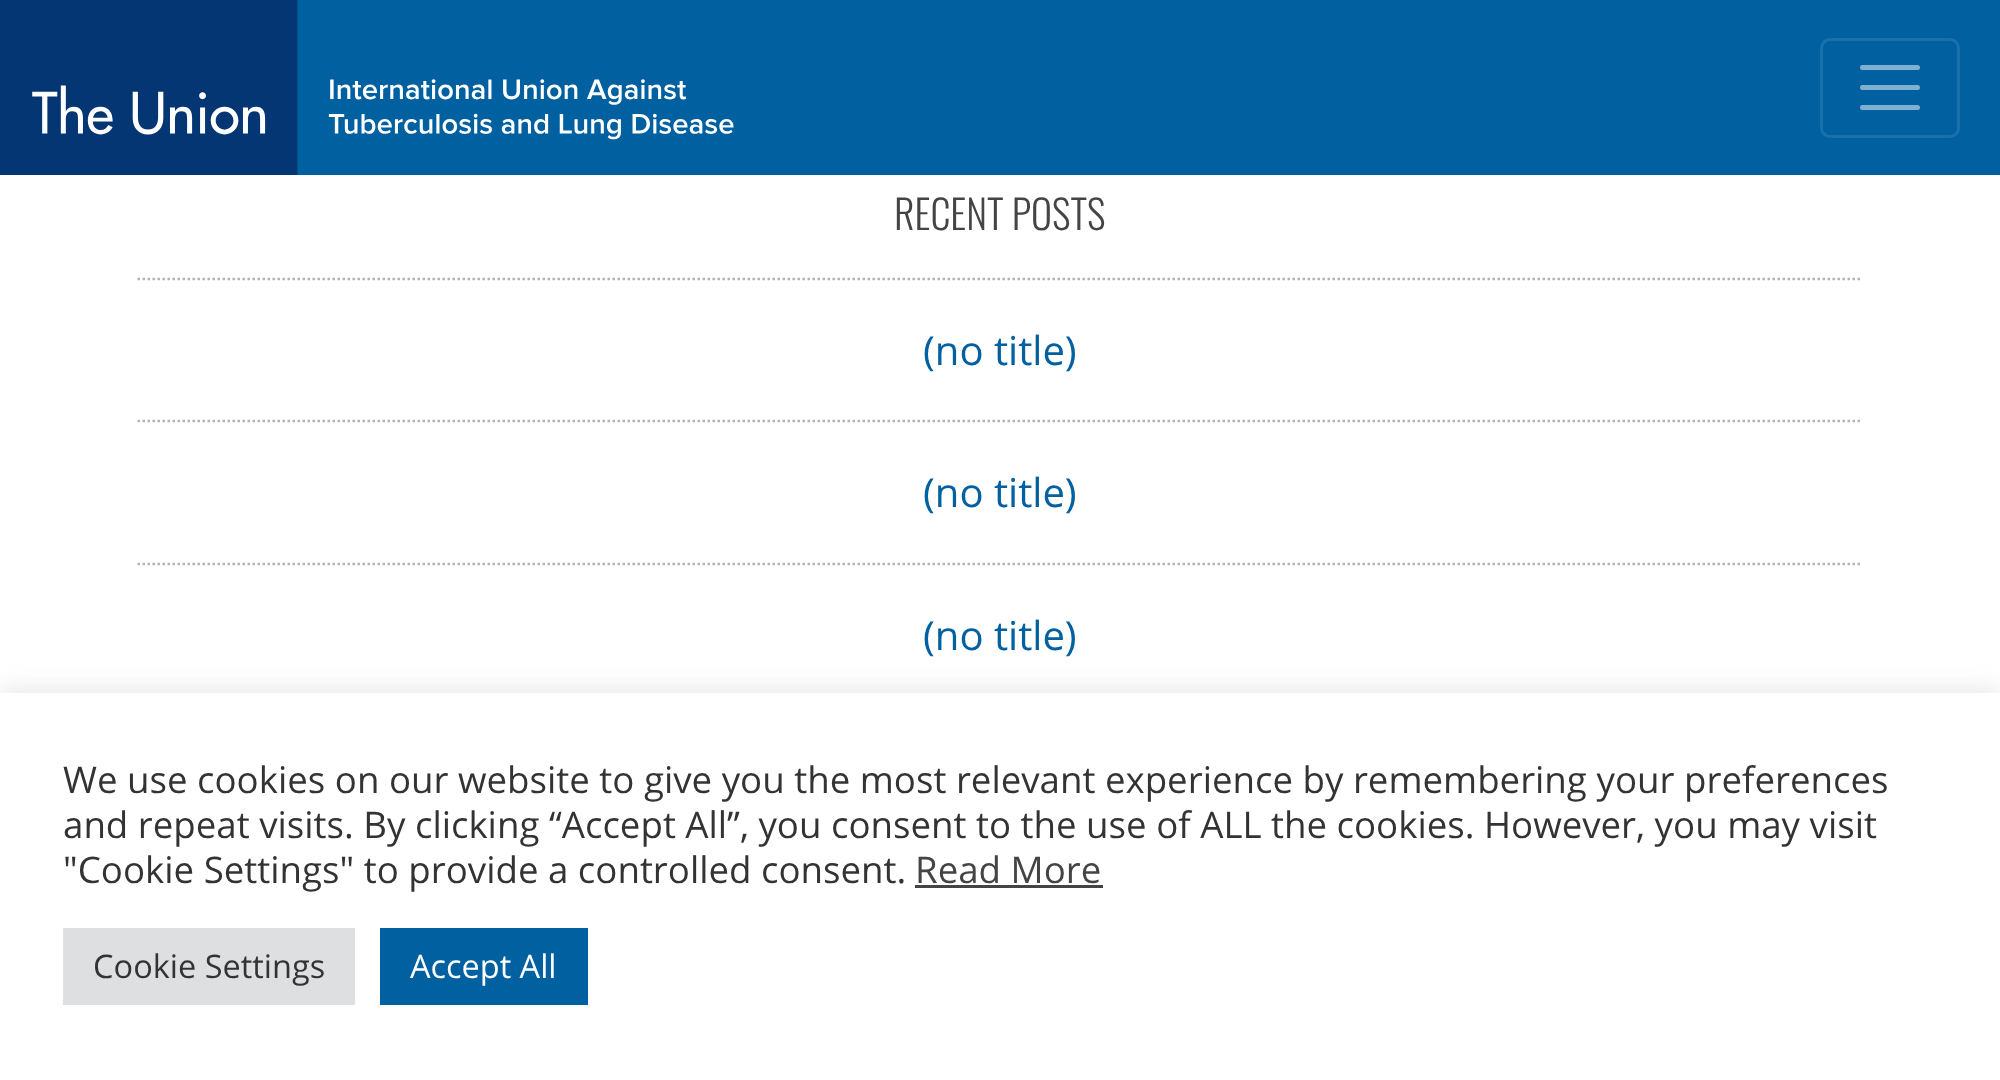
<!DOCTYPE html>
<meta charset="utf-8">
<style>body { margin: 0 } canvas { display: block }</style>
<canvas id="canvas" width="2000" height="1080"></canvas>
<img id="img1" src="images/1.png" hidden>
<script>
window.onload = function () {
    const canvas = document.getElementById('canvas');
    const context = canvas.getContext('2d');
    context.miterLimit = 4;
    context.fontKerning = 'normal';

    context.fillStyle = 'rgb(255, 255, 255)';
    context.fillRect(0, 0, 2000, 1080);
    context.fillStyle = 'rgb(0, 96, 160)';
    context.fillRect(0, 0, 2000, 175);
    context.drawImage(document.getElementById('img1'), 0, 0, 734, 175);
    context.beginPath();
    context.roundRect(1821.5, 39.5, 137, 97, 8.5);
    context.strokeStyle = 'rgb(26, 112, 170)';
    context.lineWidth = 3;
    context.stroke();
    context.beginPath();
    context.moveTo(1862.5, 67.5);
    context.lineTo(1917.5, 67.5);
    context.moveTo(1862.5, 87.5);
    context.lineTo(1917.5, 87.5);
    context.moveTo(1862.5, 107.5);
    context.lineTo(1917.5, 107.5);
    context.strokeStyle = 'rgb(128, 176, 208)';
    context.lineWidth = 5;
    context.lineCap = 'round';
    context.stroke();
    context.beginPath();
    context.moveTo(137.5, 279);
    context.lineTo(1862.5, 279);
    context.strokeStyle = 'rgb(179, 179, 179)';
    context.lineWidth = 2.5;
    context.lineCap = 'butt';
    context.setLineDash([2.5, 2.5]);
    context.stroke();
    context.beginPath();
    context.moveTo(137.5, 421);
    context.lineTo(1862.5, 421);
    context.stroke();
    context.beginPath();
    context.moveTo(137.5, 564);
    context.lineTo(1862.5, 564);
    context.stroke();
    context.fillStyle = 'rgba(172, 171, 171, 0.3)';
    context.filter = 'blur(12.5px)';
    context.beginPath();
    context.rect(0, 690, 2000, 388);
    context.fill();
    context.filter = 'none';
    context.fillStyle = 'rgb(255, 255, 255)';
    context.fillRect(0, 693, 2000, 387);
    context.fillStyle = 'rgb(68, 68, 68)';
    context.fillRect(915, 885, 188, 3);
    context.fillStyle = 'rgb(222, 223, 224)';
    context.fillRect(63, 928, 292, 77);
    context.fillStyle = 'rgb(0, 96, 160)';
    context.fillRect(380, 928, 208, 77);
    context.font = '300 40px Oswald';
    context.fillStyle = 'rgb(68, 68, 68)';
    context.fillText('RECENT POSTS', 894, 230);
    context.font = '40px Open Sans';
    context.fillStyle = 'rgb(0, 96, 160)';
    context.fillText('(no title)', 923, 365);
    context.fillText('(no title)', 923, 507);
    context.fillText('(no title)', 923, 650);
    context.font = '36.65px Open Sans';
    context.fillStyle = 'rgb(51, 51, 51)';
    context.fillText('We use cookies on our website to give you the most relevant experience by remembering your preferences', 63, 793);
    context.fillText('and repeat visits. By clicking “Accept All”, you consent to the use of ALL the cookies. However, you may visit', 63, 838);
    context.fillText('"Cookie Settings" to provide a controlled consent.', 63, 883);
    context.fillStyle = 'rgb(68, 68, 68)';
    context.fillText('Read More', 915, 883);
    context.font = '32.5px Open Sans';
    context.fillStyle = 'rgb(51, 51, 51)';
    context.fillText('Cookie Settings', 93, 978);
    context.fillStyle = 'rgb(255, 255, 255)';
    context.fillText('Accept All', 410, 978);
};
</script>
